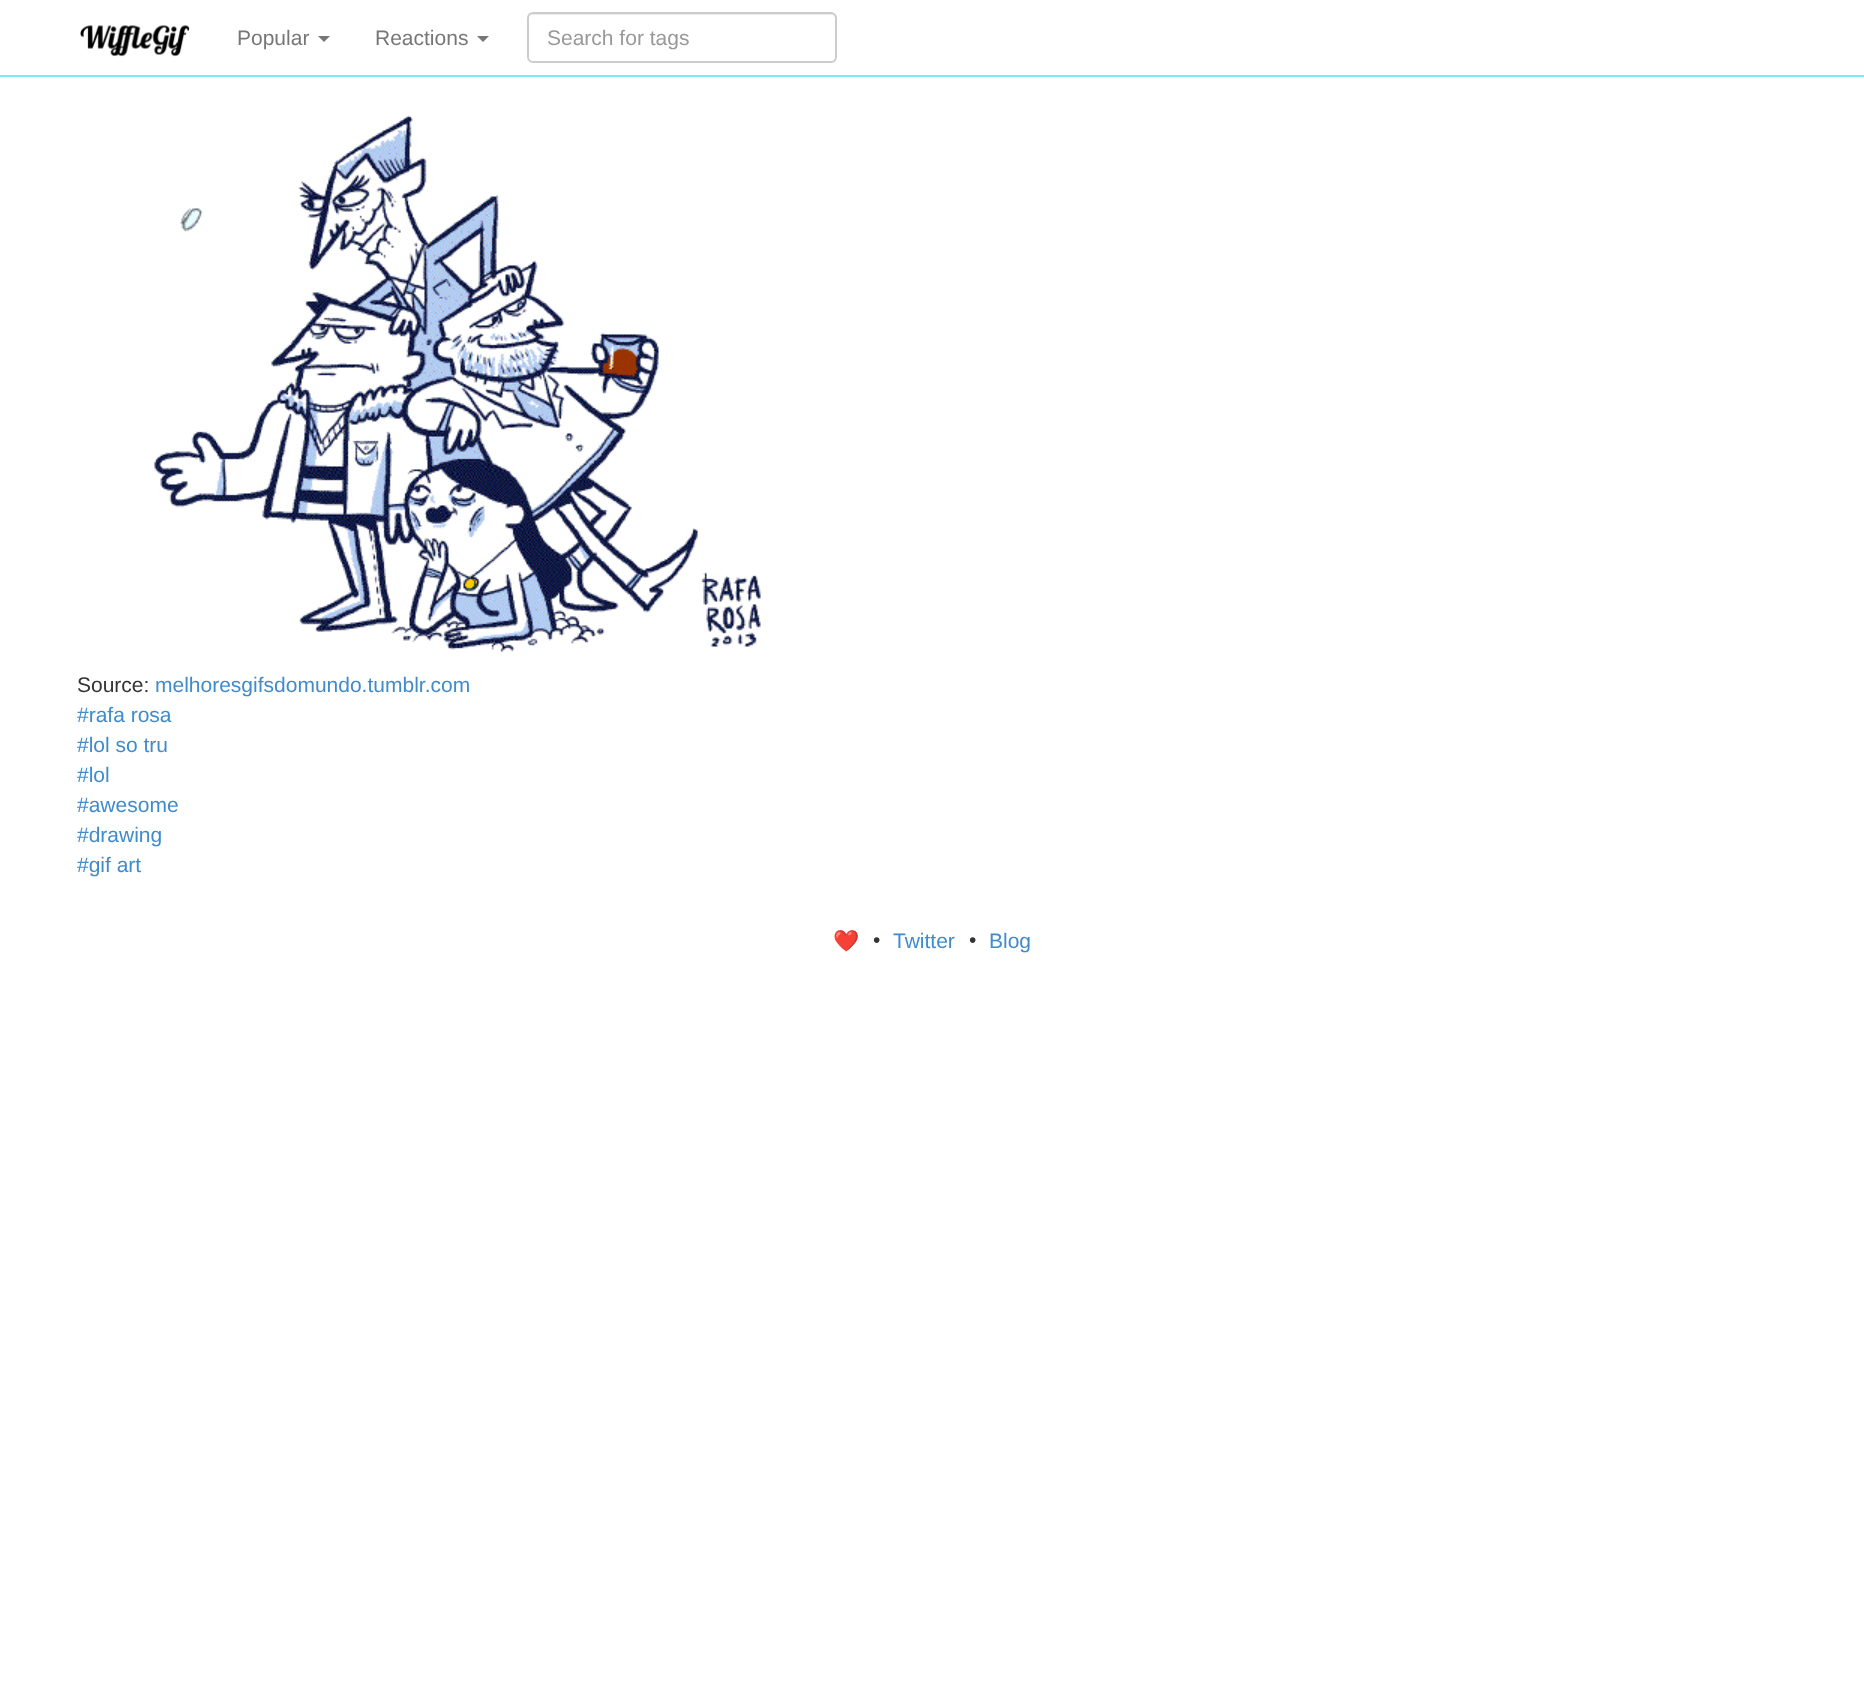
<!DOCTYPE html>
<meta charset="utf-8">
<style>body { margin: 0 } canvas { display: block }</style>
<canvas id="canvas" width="1864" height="1692"></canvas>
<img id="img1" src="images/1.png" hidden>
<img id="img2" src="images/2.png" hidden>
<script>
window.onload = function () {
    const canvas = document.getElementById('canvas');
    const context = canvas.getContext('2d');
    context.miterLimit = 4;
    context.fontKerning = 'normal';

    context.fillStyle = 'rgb(255, 255, 255)';
    context.fillRect(0, 0, 1864, 1692);
    context.fillStyle = 'rgb(121, 233, 253)';
    context.fillRect(0, 75, 1864, 2);
    context.drawImage(document.getElementById('img1'), 80, 25, 110, 32);
    context.fillStyle = 'rgb(119, 119, 119)';
    context.beginPath();
    context.moveTo(318, 36);
    context.lineTo(330, 36);
    context.lineTo(324, 42);
    context.closePath();
    context.fill();
    context.beginPath();
    context.moveTo(477, 36);
    context.lineTo(489, 36);
    context.lineTo(483, 42);
    context.closePath();
    context.fill();
    context.fillStyle = 'rgb(236, 236, 236)';
    context.beginPath();
    context.moveTo(532, 15);
    context.lineTo(831, 15);
    context.bezierCurveTo(833, 15, 836, 17, 836, 20);
    context.bezierCurveTo(836, 17, 834, 14, 831, 14);
    context.lineTo(533, 14);
    context.bezierCurveTo(530, 14, 528, 17, 528, 20);
    context.bezierCurveTo(528, 17, 530, 15, 532, 15);
    context.closePath();
    context.fill();
    context.beginPath();
    context.roundRect(528, 13, 308, 49, 5);
    context.strokeStyle = 'rgb(204, 204, 204)';
    context.lineWidth = 2;
    context.stroke();
    context.drawImage(document.getElementById('img2'), 154, 115, 607, 538);
    context.font = '21px Liberation Sans';
    context.fillStyle = 'rgb(119, 119, 119)';
    context.fillText('Popular', 237, 45);
    context.fillText('Reactions', 375, 45);
    context.fillStyle = 'rgb(153, 153, 153)';
    context.fillText('Search for tags', 547, 45);
    context.fillStyle = 'rgb(51, 51, 51)';
    context.fillText('Source:', 77, 692);
    context.fillStyle = 'rgb(66, 139, 202)';
    context.fillText('melhoresgifsdomundo.tumblr.com', 155, 692);
    context.fillText('#rafa rosa', 77, 722);
    context.fillText('#lol so tru', 77, 752);
    context.fillText('#lol', 77, 782);
    context.fillText('#awesome', 77, 812);
    context.fillText('#drawing', 77, 842);
    context.fillText('#gif art', 77, 872);
    context.font = '21px Noto Color Emoji';
    context.fillText('❤️', 833, 948);
    context.font = '21px Liberation Sans';
    context.fillStyle = 'rgb(51, 51, 51)';
    context.fillText('•', 873, 947);
    context.fillStyle = 'rgb(66, 139, 202)';
    context.fillText('Twitter', 893, 948);
    context.fillStyle = 'rgb(51, 51, 51)';
    context.fillText('•', 969, 947);
    context.fillStyle = 'rgb(66, 139, 202)';
    context.fillText('Blog', 989, 948);
};
</script>
